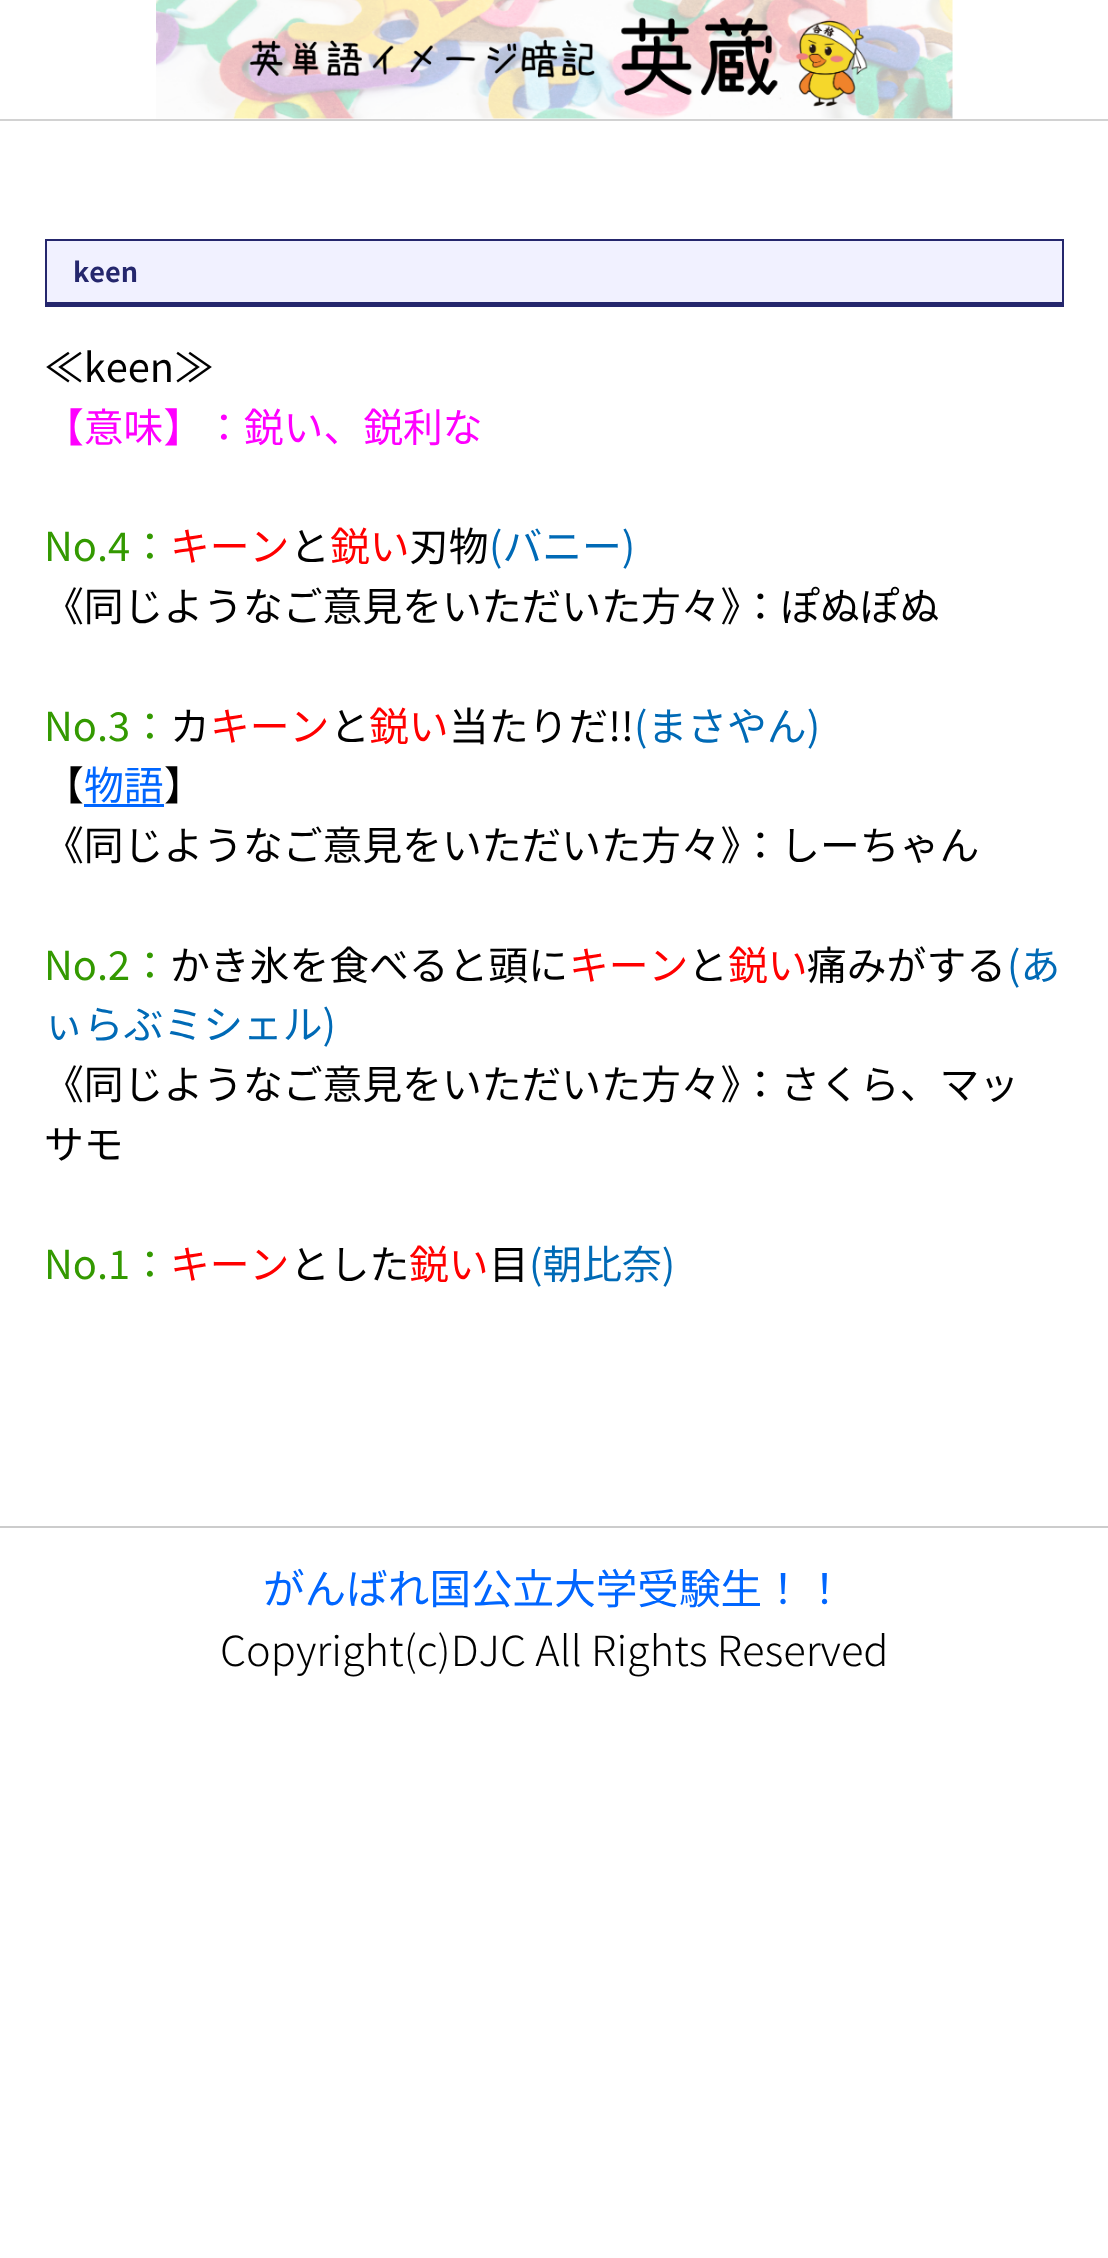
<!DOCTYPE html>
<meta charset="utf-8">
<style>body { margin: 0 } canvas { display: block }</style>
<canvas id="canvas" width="1108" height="2258"></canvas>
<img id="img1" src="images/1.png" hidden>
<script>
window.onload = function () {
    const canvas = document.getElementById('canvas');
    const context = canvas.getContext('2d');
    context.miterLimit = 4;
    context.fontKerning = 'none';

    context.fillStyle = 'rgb(255, 255, 255)';
    context.fillRect(0, 0, 1108, 2258);
    context.fillStyle = 'rgb(210, 210, 210)';
    context.fillRect(0, 119, 1108, 2);
    context.drawImage(document.getElementById('img1'), 156, 0, 797, 119);
    context.fillStyle = 'rgb(241, 241, 255)';
    context.fillRect(47, 241, 1015, 61);
    context.fillStyle = 'rgb(37, 39, 109)';
    context.fillRect(45, 239, 1019, 2);
    context.fillRect(1062, 239, 2, 67);
    context.fillRect(45, 302, 1019, 5);
    context.fillRect(45, 239, 2, 67);
    context.fillStyle = 'rgb(0, 102, 255)';
    context.fillRect(84, 804, 80, 3);
    context.fillStyle = 'rgb(204, 204, 204)';
    context.fillRect(0, 1526, 1108, 2);
    context.font = 'bold 27px Noto Sans JP';
    context.fillStyle = 'rgb(37, 39, 109)';
    context.fillText('keen', 73, 282);
    context.font = '39.8px Noto Sans JP';
    context.fillStyle = 'rgb(0, 0, 0)';
    context.fillText('≪keen≫', 44, 382);
    context.fillStyle = 'rgb(255, 0, 255)';
    context.fillText('【意味】', 44, 442);
    context.fillText('：鋭い、鋭利な', 204, 442);
    context.fillStyle = 'rgb(51, 153, 0)';
    context.fillText('No.4：', 44, 561);
    context.fillStyle = 'rgb(255, 0, 0)';
    context.fillText('キーン', 170, 561);
    context.fillStyle = 'rgb(0, 0, 0)';
    context.fillText('と', 290, 561);
    context.fillStyle = 'rgb(255, 0, 0)';
    context.fillText('鋭い', 330, 561);
    context.fillStyle = 'rgb(0, 0, 0)';
    context.fillText('刃物', 409, 561);
    context.fillStyle = 'rgb(0, 106, 182)';
    context.fillText('(バニー)', 489, 561);
    context.fillStyle = 'rgb(0, 0, 0)';
    context.fillText('《同じようなご意見をいただいた方々》：ぽぬぽぬ', 44, 621);
    context.fillStyle = 'rgb(51, 153, 0)';
    context.fillText('No.3：', 44, 741);
    context.fillStyle = 'rgb(0, 0, 0)';
    context.fillText('カ', 170, 741);
    context.fillStyle = 'rgb(255, 0, 0)';
    context.fillText('キーン', 210, 741);
    context.fillStyle = 'rgb(0, 0, 0)';
    context.fillText('と', 330, 741);
    context.fillStyle = 'rgb(255, 0, 0)';
    context.fillText('鋭い', 369, 741);
    context.fillStyle = 'rgb(0, 0, 0)';
    context.fillText('当たりだ!!', 449, 741);
    context.fillStyle = 'rgb(0, 106, 182)';
    context.fillText('(まさやん)', 634, 741);
    context.fillStyle = 'rgb(0, 0, 0)';
    context.fillText('【', 44, 800);
    context.fillStyle = 'rgb(0, 102, 255)';
    context.fillText('物語', 84, 800);
    context.fillStyle = 'rgb(0, 0, 0)';
    context.fillText('】', 164, 800);
    context.fillText('《同じようなご意見をいただいた方々》：しーちゃん', 44, 860);
    context.fillStyle = 'rgb(51, 153, 0)';
    context.fillText('No.2：', 44, 980);
    context.fillStyle = 'rgb(0, 0, 0)';
    context.fillText('かき氷を食べると頭に', 170, 980);
    context.fillStyle = 'rgb(255, 0, 0)';
    context.fillText('キーン', 569, 980);
    context.fillStyle = 'rgb(0, 0, 0)';
    context.fillText('と', 688, 980);
    context.fillStyle = 'rgb(255, 0, 0)';
    context.fillText('鋭い', 728, 980);
    context.fillStyle = 'rgb(0, 0, 0)';
    context.fillText('痛みがする', 807, 980);
    context.fillStyle = 'rgb(0, 106, 182)';
    context.fillText('(あ', 1007, 980);
    context.fillText('ぃらぶミシェル)', 44, 1039);
    context.fillStyle = 'rgb(0, 0, 0)';
    context.fillText('《同じようなご意見をいただいた方々》：さくら、マッ', 44, 1099);
    context.fillText('サモ', 44, 1159);
    context.fillStyle = 'rgb(51, 153, 0)';
    context.fillText('No.1：', 44, 1279);
    context.fillStyle = 'rgb(255, 0, 0)';
    context.fillText('キーン', 170, 1279);
    context.fillStyle = 'rgb(0, 0, 0)';
    context.fillText('とした', 290, 1279);
    context.fillStyle = 'rgb(255, 0, 0)';
    context.fillText('鋭い', 409, 1279);
    context.fillStyle = 'rgb(0, 0, 0)';
    context.fillText('目', 489, 1279);
    context.fillStyle = 'rgb(0, 106, 182)';
    context.fillText('(朝比奈)', 529, 1279);
    context.font = '41.6px Noto Sans JP';
    context.fillStyle = 'rgb(0, 102, 255)';
    context.fillText('がんばれ国公立大学受験生！！', 263, 1604);
    context.font = '300 41.6px Noto Sans JP';
    context.fillStyle = 'rgb(0, 0, 0)';
    context.fillText('Copyright(c)DJC All Rights Reserved', 220, 1666);
};
</script>
